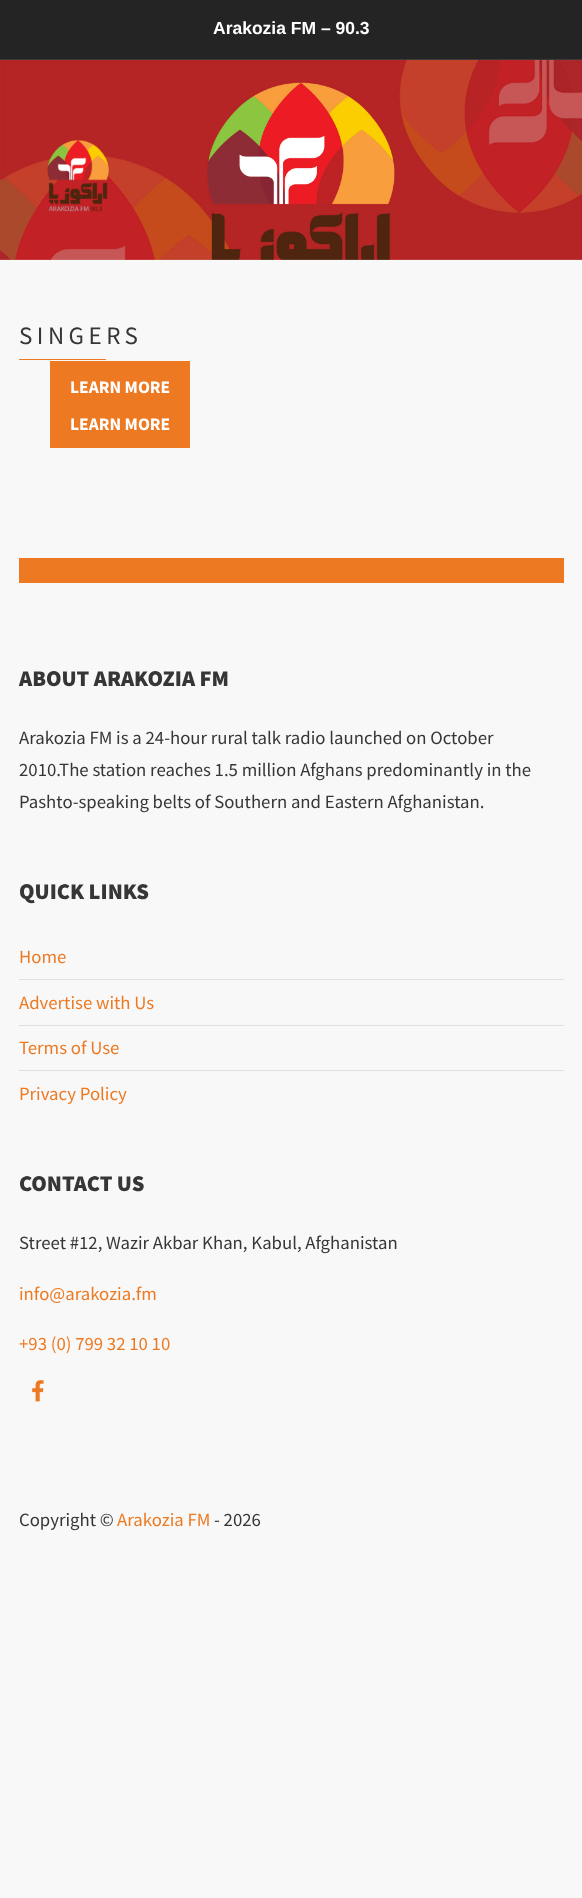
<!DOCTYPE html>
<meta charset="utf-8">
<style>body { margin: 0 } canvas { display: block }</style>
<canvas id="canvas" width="582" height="1898"></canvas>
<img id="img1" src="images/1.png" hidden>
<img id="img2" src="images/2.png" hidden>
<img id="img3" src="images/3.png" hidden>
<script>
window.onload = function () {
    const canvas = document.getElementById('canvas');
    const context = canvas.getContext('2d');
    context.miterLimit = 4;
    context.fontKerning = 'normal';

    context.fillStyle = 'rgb(248, 248, 248)';
    context.fillRect(0, 0, 582, 1898);
    context.fillStyle = 'rgb(36, 36, 36)';
    context.fillRect(0, 0, 582, 59);
    context.fillStyle = 'rgb(58, 58, 58)';
    context.fillRect(0, 59, 582, 1);
    context.drawImage(document.getElementById('img1'), 0, 60, 582, 200);
    context.fillStyle = 'rgba(255, 255, 255, 0.1)';
    context.fillRect(0, 259, 582, 1);
    context.drawImage(document.getElementById('img2'), 47, 140, 62, 72);
    context.fillStyle = 'rgb(237, 122, 35)';
    context.fillRect(19, 359, 87, 1);
    context.fillRect(50, 361, 140, 87);
    context.fillRect(19, 558, 545, 25);
    context.fillStyle = 'rgb(224, 224, 224)';
    context.fillRect(19, 979, 545, 1);
    context.fillRect(19, 1025, 545, 1);
    context.fillRect(19, 1070, 545, 1);
    context.drawImage(document.getElementById('img3'), 32, 1380, 12, 22);
    context.font = 'bold 17.5px Liberation Sans';
    context.fillStyle = 'rgb(255, 255, 255)';
    context.fillText('Arakozia FM – 90.3', 213, 34);
    context.letterSpacing = '4.5px';
    context.font = '25px Source Sans Pro';
    context.fillStyle = 'rgb(54, 54, 54)';
    context.fillText('SINGERS', 19, 344);
    context.letterSpacing = '0px';
    context.font = 'bold 17.5px Source Sans Pro';
    context.fillStyle = 'rgb(255, 255, 255)';
    context.fillText('LEARN MORE', 70, 393);
    context.fillText('LEARN MORE', 70, 430);
    context.font = '900 22.5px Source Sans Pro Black';
    context.fillStyle = 'rgb(54, 54, 54)';
    context.fillText('ABOUT ARAKOZIA FM', 19, 686);
    context.font = '18.75px Source Sans Pro';
    context.fillText('Arakozia FM is a 24-hour rural talk radio launched on October', 19, 744);
    context.fillText('2010.The station reaches 1.5 million Afghans predominantly in the', 19, 776);
    context.fillText('Pashto-speaking belts of Southern and Eastern Afghanistan.', 19, 808);
    context.font = '900 22.5px Source Sans Pro Black';
    context.fillText('QUICK LINKS', 19, 899);
    context.font = '18.75px Source Sans Pro';
    context.fillStyle = 'rgb(237, 122, 35)';
    context.fillText('Home', 19, 963);
    context.fillText('Advertise with Us', 19, 1009);
    context.fillText('Terms of Use', 19, 1054);
    context.fillText('Privacy Policy', 19, 1100);
    context.font = '900 22.5px Source Sans Pro Black';
    context.fillStyle = 'rgb(54, 54, 54)';
    context.fillText('CONTACT US', 19, 1191);
    context.font = '18.75px Source Sans Pro';
    context.fillText('Street #12, Wazir Akbar Khan, Kabul, Afghanistan', 19, 1249);
    context.fillStyle = 'rgb(237, 122, 35)';
    context.fillText('info@arakozia.fm', 19, 1300);
    context.fillText('+93 (0) 799 32 10 10', 19, 1350);
    context.fillStyle = 'rgb(54, 54, 54)';
    context.fillText('Copyright ©', 19, 1526);
    context.fillStyle = 'rgb(237, 122, 35)';
    context.fillText('Arakozia FM', 117, 1526);
    context.fillStyle = 'rgb(54, 54, 54)';
    context.fillText('- 2026', 214, 1526);
};
</script>
